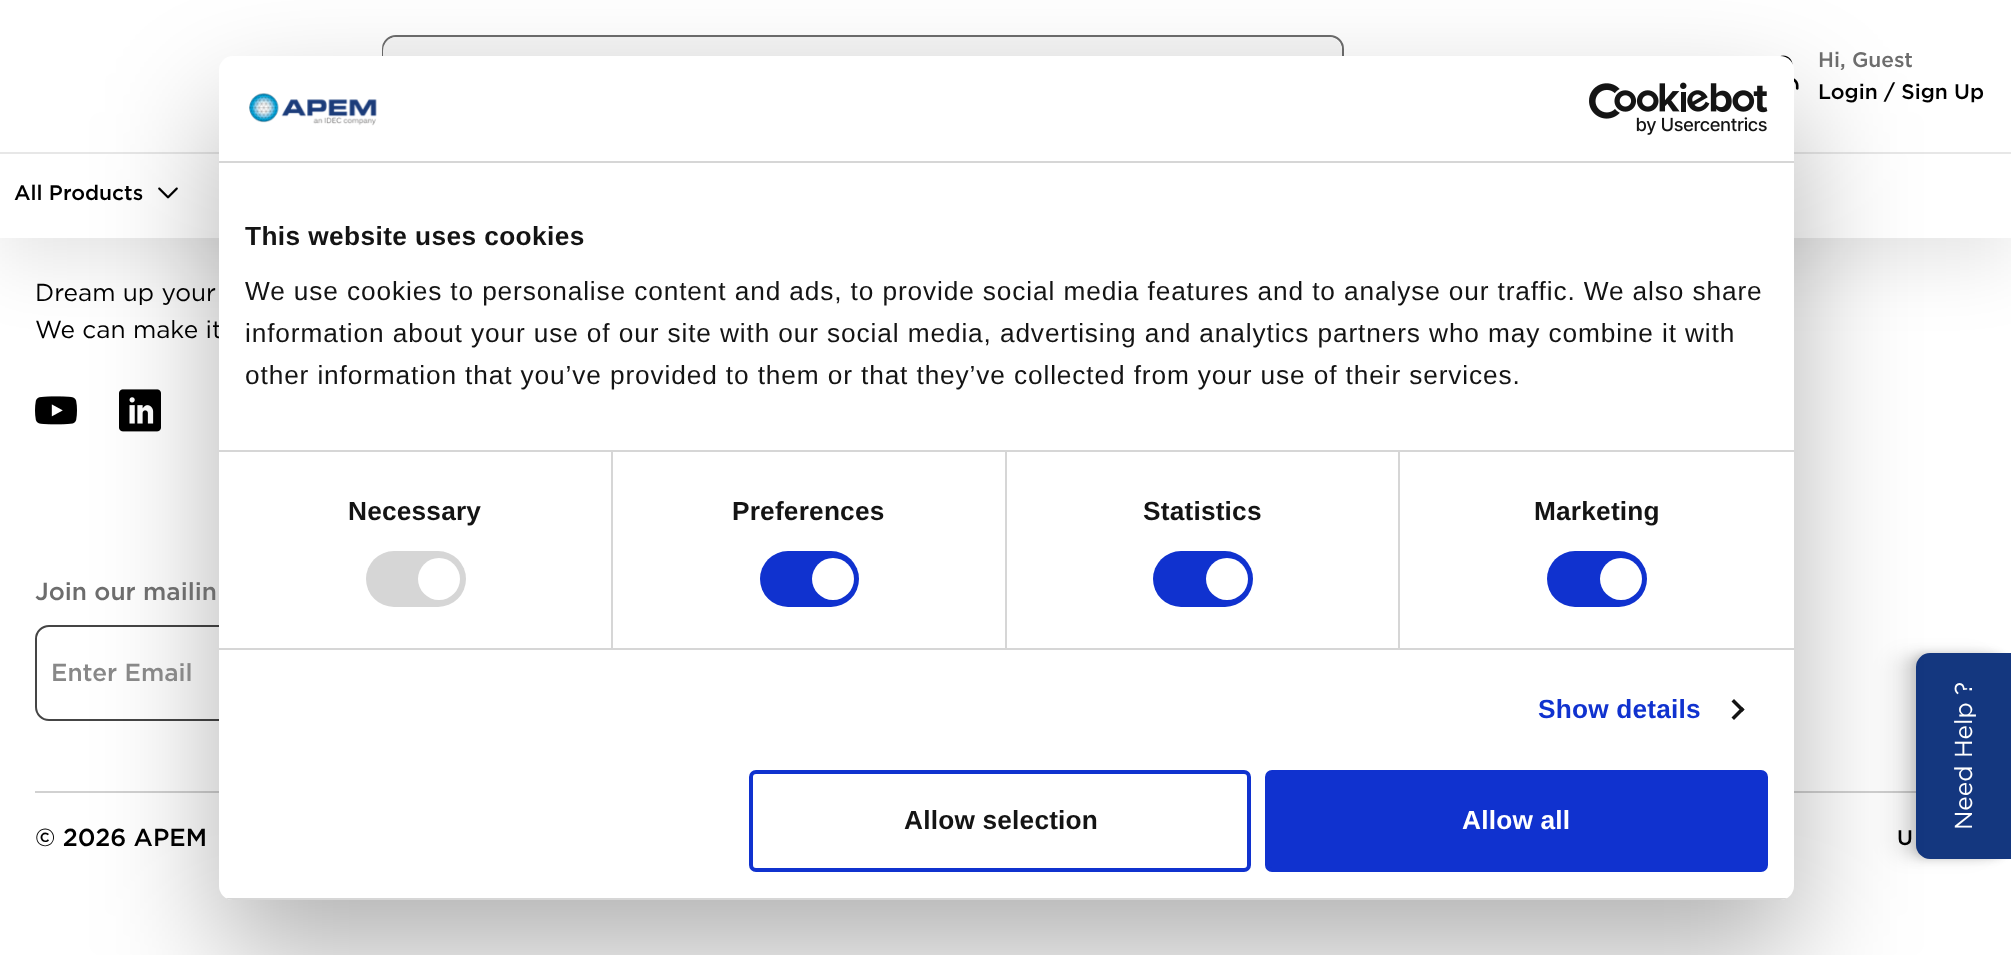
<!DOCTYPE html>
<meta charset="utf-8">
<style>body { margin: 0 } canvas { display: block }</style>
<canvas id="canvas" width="2011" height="955"></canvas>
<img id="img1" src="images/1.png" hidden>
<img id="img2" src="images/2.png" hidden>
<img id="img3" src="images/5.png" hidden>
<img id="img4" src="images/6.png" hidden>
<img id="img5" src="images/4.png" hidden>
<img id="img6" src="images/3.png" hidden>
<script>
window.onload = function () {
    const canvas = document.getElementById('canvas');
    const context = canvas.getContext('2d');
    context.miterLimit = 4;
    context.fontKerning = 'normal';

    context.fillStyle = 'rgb(255, 255, 255)';
    context.fillRect(0, 0, 2011, 955);
    context.fillStyle = 'rgba(0, 0, 0, 0.1)';
    context.filter = 'blur(35px)';
    context.beginPath();
    context.rect(0, 26, 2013, 238);
    context.fill();
    context.filter = 'none';
    context.fillStyle = 'rgb(255, 255, 255)';
    context.fillRect(0, 0, 2011, 238);
    context.beginPath();
    context.roundRect(383, 36, 960, 80, 13);
    context.strokeStyle = 'rgb(109, 109, 109)';
    context.lineWidth = 2;
    context.stroke();
    context.fillStyle = 'rgb(246, 246, 246)';
    context.beginPath();
    context.roundRect(383, 37, 959, 79, 14);
    context.fill();
    context.drawImage(document.getElementById('img1'), 1780, 55, 19, 35);
    context.fillStyle = 'rgb(231, 231, 231)';
    context.fillRect(0, 152, 2011, 2);
    context.drawImage(document.getElementById('img2'), 158, 187, 20, 12);
    context.drawImage(document.getElementById('img3'), 35, 396, 42, 29);
    context.drawImage(document.getElementById('img4'), 119, 389, 42, 43);
    context.beginPath();
    context.roundRect(36, 626, 488, 94, [13, 0, 0, 13]);
    context.strokeStyle = 'rgb(69, 69, 69)';
    context.stroke();
    context.fillStyle = 'rgb(209, 209, 209)';
    context.fillRect(35, 791, 1881, 2);
    context.fillStyle = 'rgba(0, 0, 0, 0.1)';
    context.filter = 'blur(3.5px)';
    context.beginPath();
    context.roundRect(1913, 653, 96, 206, 14);
    context.fill();
    context.filter = 'none';
    context.fillStyle = 'rgba(0, 0, 0, 0.09)';
    context.filter = 'blur(6px)';
    context.beginPath();
    context.roundRect(1904, 653, 96, 206, 14);
    context.fill();
    context.filter = 'none';
    context.fillStyle = 'rgba(0, 0, 0, 0.05)';
    context.filter = 'blur(9px)';
    context.beginPath();
    context.roundRect(1888, 653, 97, 206, 14);
    context.fill();
    context.filter = 'none';
    context.fillStyle = 'rgb(20, 55, 127)';
    context.beginPath();
    context.moveTo(1930, 654);
    context.lineTo(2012, 654);
    context.lineTo(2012, 858);
    context.lineTo(1930, 858);
    context.bezierCurveTo(1923, 858, 1917, 852, 1917, 845);
    context.lineTo(1917, 667);
    context.bezierCurveTo(1917, 660, 1923, 654, 1930, 654);
    context.closePath();
    context.fill();
    context.strokeStyle = 'rgb(20, 55, 127)';
    context.stroke();
    context.fillStyle = 'rgba(0, 0, 0, 0.3)';
    context.filter = 'blur(59.5px)';
    context.beginPath();
    context.roundRect(219, 112, 1575, 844, 14);
    context.fill();
    context.filter = 'none';
    context.font = '500 21px Gotham';
    context.fillStyle = 'rgb(109, 109, 109)';
    context.fillText('Hi, Guest', 1818, 67);
    context.fillStyle = 'rgb(0, 0, 0)';
    context.fillText('Login / Sign Up', 1818, 99);
    context.fillText('All Products', 14, 200);
    context.font = '24.5px Gotham';
    context.fillText('Dream up your', 35, 301);
    context.fillText('We can make it', 35, 338);
    context.fillStyle = 'rgb(255, 255, 255)';
    context.beginPath();
    context.roundRect(219, 56, 1575, 844, 14);
    context.fill();
    context.fillStyle = 'rgb(16, 50, 207)';
    context.beginPath();
    context.roundRect(1267, 772, 499, 98, 5);
    context.fill();
    context.strokeStyle = 'rgb(16, 50, 207)';
    context.lineWidth = 4;
    context.stroke();
    context.letterSpacing = '0.2px';
    context.font = 'bold 26.25px Liberation Sans';
    context.fillStyle = 'rgb(255, 255, 255)';
    context.fillText('Allow all', 1462, 829);
    context.beginPath();
    context.roundRect(751, 772, 498, 98, 5);
    context.stroke();
    context.fillStyle = 'rgb(20, 20, 20)';
    context.fillText('Allow selection', 904, 829);
    context.save();
    context.beginPath();
    context.roundRect(219, 56, 1575, 844, 14);
    context.clip();
    context.fillStyle = 'rgb(214, 214, 214)';
    context.fillRect(219, 898, 1575, 2);
    context.restore();
    context.beginPath();
    context.moveTo(1734, 699);
    context.lineTo(1744.5, 709.5);
    context.lineTo(1742, 712);
    context.lineTo(1731.5, 701.5);
    context.closePath();
    context.fill();
    context.beginPath();
    context.moveTo(1742, 707);
    context.lineTo(1744.5, 709.5);
    context.lineTo(1734, 720);
    context.lineTo(1731.5, 717.5);
    context.closePath();
    context.fill();
    context.fillStyle = 'rgb(16, 50, 207)';
    context.beginPath();
    context.roundRect(1547, 551, 100, 56, 28);
    context.fill();
    context.fillStyle = 'rgb(255, 255, 255)';
    context.beginPath();
    context.arc(1621, 579, 21, 0, 2 * Math.PI);
    context.fill();
    context.fillStyle = 'rgb(16, 50, 207)';
    context.beginPath();
    context.roundRect(1153, 551, 100, 56, 28);
    context.fill();
    context.fillStyle = 'rgb(255, 255, 255)';
    context.beginPath();
    context.arc(1227, 579, 21, 0, 2 * Math.PI);
    context.fill();
    context.fillStyle = 'rgb(16, 50, 207)';
    context.beginPath();
    context.roundRect(760, 551, 99, 56, 28);
    context.fill();
    context.fillStyle = 'rgb(255, 255, 255)';
    context.beginPath();
    context.arc(833, 579, 21, 0, 2 * Math.PI);
    context.fill();
    context.fillStyle = 'rgb(214, 214, 214)';
    context.beginPath();
    context.roundRect(366, 551, 100, 56, 28);
    context.fill();
    context.fillStyle = 'rgb(255, 255, 255)';
    context.beginPath();
    context.arc(439, 579, 21, 0, 2 * Math.PI);
    context.fill();
    context.letterSpacing = '0.88px';
    context.font = '26.25px Liberation Sans';
    context.fillStyle = 'rgb(20, 20, 20)';
    context.fillText('other information that you’ve provided to them or that they’ve collected from your use of their services.', 245, 384);
    context.fillText('information about your use of our site with our social media, advertising and analytics partners who may combine it with', 245, 342);
    context.fillText('We use cookies to personalise content and ads, to provide social media features and to analyse our traffic. We also share', 245, 300);
    context.letterSpacing = '0.4px';
    context.font = 'bold 26.25px Liberation Sans';
    context.fillText('This website uses cookies', 245, 245);
    context.fillStyle = 'rgb(214, 214, 214)';
    context.fillRect(219, 450, 1575, 2);
    context.letterSpacing = '0.2px';
    context.fillStyle = 'rgb(16, 50, 207)';
    context.fillText('Show details', 1538, 718);
    context.fillStyle = 'rgb(20, 20, 20)';
    context.fillText('Marketing', 1534, 520);
    context.fillText('Statistics', 1143, 520);
    context.fillStyle = 'rgb(214, 214, 214)';
    context.fillRect(1398, 452, 2, 196);
    context.fillStyle = 'rgb(20, 20, 20)';
    context.fillText('Preferences', 732, 520);
    context.fillStyle = 'rgb(214, 214, 214)';
    context.fillRect(1005, 452, 2, 196);
    context.fillStyle = 'rgb(20, 20, 20)';
    context.fillText('Necessary', 348, 520);
    context.fillStyle = 'rgb(214, 214, 214)';
    context.fillRect(611, 452, 2, 196);
    context.fillRect(219, 648, 1575, 2);
    context.drawImage(document.getElementById('img5'), 1589, 82, 179, 53);
    context.drawImage(document.getElementById('img6'), 249, 93, 128, 33);
    context.fillRect(219, 161, 1575, 2);
    context.letterSpacing = '0px';
    context.font = '500 24.5px Gotham';
    context.fillStyle = 'rgb(109, 109, 109)';
    context.fillText('Join our mailin', 35, 600);
    context.fillStyle = 'rgb(136, 136, 136)';
    context.fillText('Enter Email', 51, 681);
    context.fillStyle = 'rgb(0, 0, 0)';
    context.fillText('© 2026 APEM', 35, 846);
    context.font = '500 21px Gotham';
    context.fillText('U', 1897, 845);
    context.font = '24.5px Gotham';
    context.fillStyle = 'rgb(255, 255, 255)';
    context.save();
    context.translate(1972, 830);
    context.rotate(-90 * Math.PI / 180);
    context.fillText('Need Help ?', 0, 0);
    context.restore();
};
</script>
